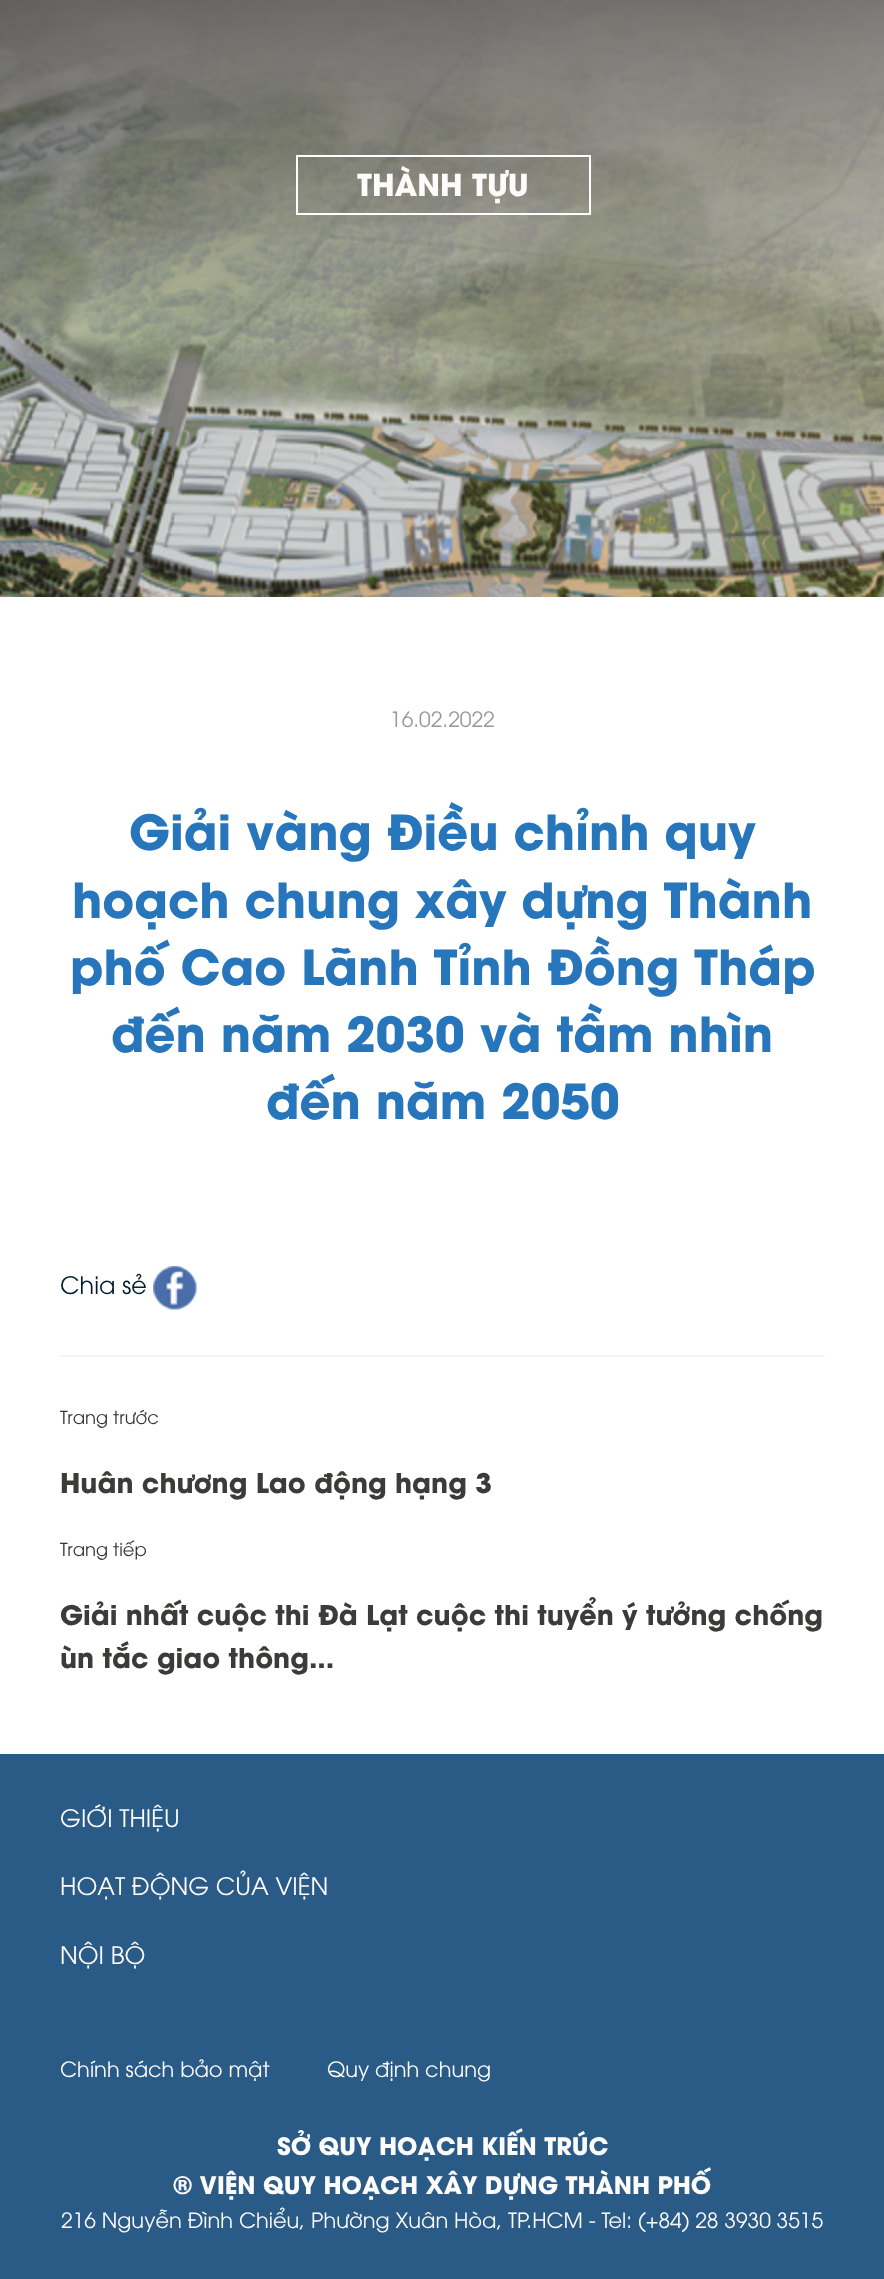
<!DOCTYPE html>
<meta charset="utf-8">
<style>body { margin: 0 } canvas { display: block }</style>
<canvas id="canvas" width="884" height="2279"></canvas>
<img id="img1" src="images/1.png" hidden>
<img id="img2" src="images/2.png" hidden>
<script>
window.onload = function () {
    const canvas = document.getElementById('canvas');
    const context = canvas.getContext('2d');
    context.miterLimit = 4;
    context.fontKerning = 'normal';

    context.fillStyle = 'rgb(255, 255, 255)';
    context.fillRect(0, 0, 884, 2279);
    context.drawImage(document.getElementById('img1'), 0, 0, 884, 597);
    context.strokeStyle = 'rgb(255, 255, 255)';
    context.lineWidth = 2;
    context.strokeRect(297, 156, 293, 58);
    context.fillStyle = 'rgb(243, 243, 243)';
    context.fillRect(60, 1355, 765, 2);
    context.drawImage(document.getElementById('img2'), 153, 1266, 44, 44);
    context.fillStyle = 'rgb(42, 91, 134)';
    context.fillRect(0, 1754, 884, 525);
    context.font = 'bold 30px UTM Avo';
    context.fillStyle = 'rgb(254, 251, 251)';
    context.fillText('THÀNH TỰU', 357, 196);
    context.font = '21px UTM Avo';
    context.fillStyle = 'rgb(153, 151, 151)';
    context.fillText('16.02.2022', 390, 727);
    context.font = 'bold 48px UTM Avo';
    context.fillStyle = 'rgb(39, 118, 187)';
    context.fillText('Giải vàng Điều chỉnh quy', 129, 850);
    context.fillText('hoạch chung xây dựng Thành', 72, 918);
    context.fillText('phố Cao Lãnh Tỉnh Đồng Tháp', 70, 985);
    context.fillText('đến năm 2030 và tầm nhìn', 111, 1052);
    context.fillText('đến năm 2050', 266, 1119);
    context.font = '24px UTM Avo';
    context.fillStyle = 'rgb(0, 28, 45)';
    context.fillText('Chia sẻ', 60, 1294);
    context.font = '18px UTM Avo';
    context.fillStyle = 'rgb(51, 51, 51)';
    context.fillText('Trang trước', 60, 1424);
    context.font = 'bold 27px UTM Avo';
    context.fillStyle = 'rgb(59, 59, 58)';
    context.fillText('Huân chương Lao động hạng 3', 60, 1493);
    context.font = '18px UTM Avo';
    context.fillStyle = 'rgb(51, 51, 51)';
    context.fillText('Trang tiếp', 60, 1556);
    context.font = 'bold 27px UTM Avo';
    context.fillStyle = 'rgb(59, 59, 58)';
    context.fillText('Giải nhất cuộc thi Đà Lạt cuộc thi tuyển ý tưởng chống', 60, 1625);
    context.fillText('ùn tắc giao thông...', 60, 1668);
    context.font = '24px UTM Avo';
    context.fillStyle = 'rgb(254, 251, 251)';
    context.fillText('GIỚI THIỆU', 60, 1827);
    context.fillText('HOẠT ĐỘNG CỦA VIỆN', 60, 1895);
    context.fillText('NỘI BỘ', 60, 1964);
    context.font = '21px UTM Avo';
    context.fillText('Chính sách bảo mật', 60, 2077);
    context.fillText('Quy định chung', 327, 2077);
    context.font = 'bold 24px UTM Avo';
    context.fillText('SỞ QUY HOẠCH KIẾN TRÚC', 277, 2155);
    context.fillText('© VIỆN QUY HOẠCH XÂY DỰNG THÀNH PHỐ', 173, 2194);
    context.font = '21px UTM Avo';
    context.fillText('216 Nguyễn Đình Chiểu, Phường Xuân Hòa, TP.HCM - Tel: (+84) 28 3930 3515', 61, 2228);
};
</script>
